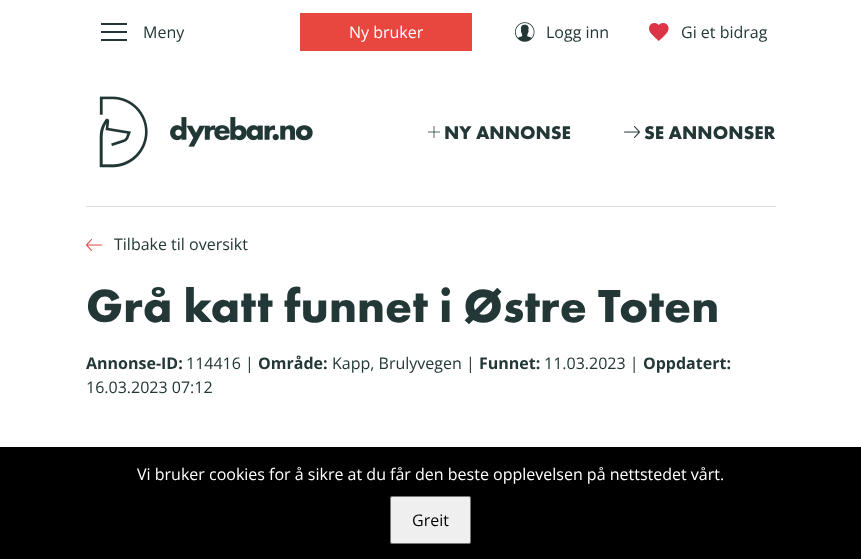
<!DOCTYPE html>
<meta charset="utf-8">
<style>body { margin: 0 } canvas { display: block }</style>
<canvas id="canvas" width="861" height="559"></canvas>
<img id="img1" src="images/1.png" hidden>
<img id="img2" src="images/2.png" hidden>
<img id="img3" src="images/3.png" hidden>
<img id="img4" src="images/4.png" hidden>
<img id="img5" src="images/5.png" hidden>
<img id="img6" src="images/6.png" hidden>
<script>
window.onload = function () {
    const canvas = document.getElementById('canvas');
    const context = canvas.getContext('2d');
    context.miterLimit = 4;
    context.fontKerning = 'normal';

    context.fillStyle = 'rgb(255, 255, 255)';
    context.fillRect(0, 0, 861, 559);
    context.fillStyle = 'rgb(34, 55, 54)';
    context.fillRect(101, 23, 26, 2);
    context.fillRect(101, 31, 26, 2);
    context.fillRect(101, 39, 26, 2);
    context.fillStyle = 'rgb(232, 71, 64)';
    context.fillRect(300, 13, 172, 38);
    context.drawImage(document.getElementById('img1'), 515, 22, 20, 20);
    context.drawImage(document.getElementById('img2'), 649, 23, 20, 18);
    context.drawImage(document.getElementById('img3'), 99, 96, 214, 72);
    context.drawImage(document.getElementById('img4'), 428, 126, 12, 12);
    context.drawImage(document.getElementById('img5'), 624, 126, 16, 12);
    context.fillStyle = 'rgb(220, 220, 220)';
    context.fillRect(86, 206, 690, 1);
    context.drawImage(document.getElementById('img6'), 86, 239, 16, 12);
    context.fillStyle = 'rgb(0, 0, 0)';
    context.fillRect(0, 447, 861, 112);
    context.fillStyle = 'rgb(239, 239, 239)';
    context.beginPath();
    context.roundRect(390.5, 496.5, 80, 47, 1.5);
    context.fill();
    context.strokeStyle = 'rgb(118, 118, 118)';
    context.stroke();
    context.font = '16px Open Sans';
    context.fillStyle = 'rgb(34, 55, 54)';
    context.fillText('Meny', 143, 38);
    context.fillStyle = 'rgb(255, 255, 255)';
    context.fillText('Ny bruker', 349, 38);
    context.fillStyle = 'rgb(34, 55, 54)';
    context.fillText('Logg inn', 546, 38);
    context.fillText('Gi et bidrag', 681, 38);
    context.font = 'bold 19px Futura PT';
    context.fillText('NY ANNONSE', 444, 139);
    context.fillText('SE ANNONSER', 644, 139);
    context.font = '16px Open Sans';
    context.fillText('Tilbake til oversikt', 114, 250);
    context.font = 'bold 48px Futura PT';
    context.fillText('Grå katt funnet i Østre Toten', 86, 322);
    context.font = 'bold 16px Open Sans';
    context.fillText('Annonse-ID:', 86, 369);
    context.font = '16px Open Sans';
    context.fillText('114416 |', 186, 369);
    context.font = 'bold 16px Open Sans';
    context.fillText('Område:', 258, 369);
    context.font = '16px Open Sans';
    context.fillText('Kapp, Brulyvegen |', 332, 369);
    context.font = 'bold 16px Open Sans';
    context.fillText('Funnet:', 479, 369);
    context.font = '16px Open Sans';
    context.fillText('11.03.2023 |', 544, 369);
    context.font = 'bold 16px Open Sans';
    context.fillText('Oppdatert:', 643, 369);
    context.font = '16px Open Sans';
    context.fillText('16.03.2023 07:12', 86, 393);
    context.fillStyle = 'rgb(255, 255, 255)';
    context.fillText('Vi bruker cookies for å sikre at du får den beste opplevelsen på nettstedet vårt.', 137, 480);
    context.fillStyle = 'rgb(0, 0, 0)';
    context.fillText('Greit', 412, 526);
};
</script>
